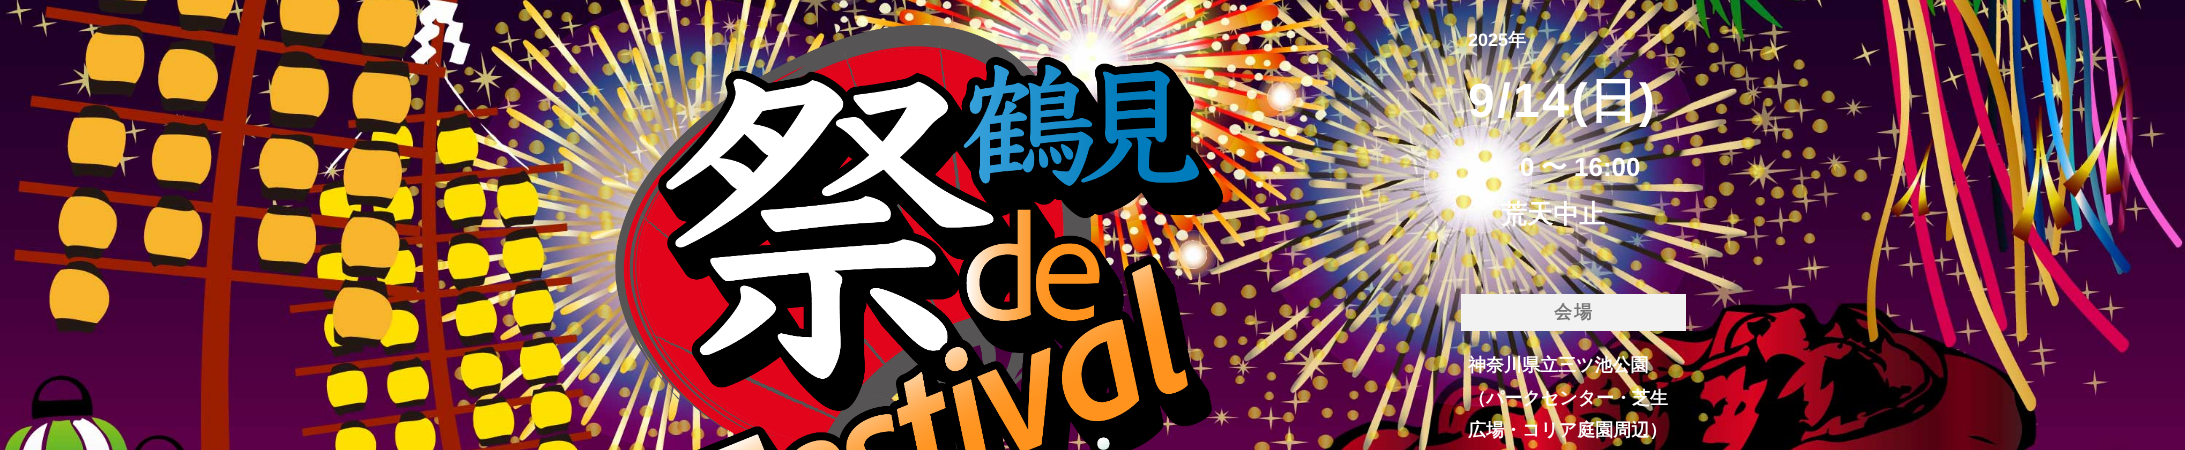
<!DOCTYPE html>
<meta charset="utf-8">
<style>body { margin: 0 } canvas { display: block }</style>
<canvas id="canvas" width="2185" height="450"></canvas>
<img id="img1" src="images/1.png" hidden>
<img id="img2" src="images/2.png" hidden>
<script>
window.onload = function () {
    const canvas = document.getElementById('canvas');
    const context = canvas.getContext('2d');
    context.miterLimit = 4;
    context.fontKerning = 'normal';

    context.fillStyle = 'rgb(255, 255, 255)';
    context.fillRect(0, 0, 2185, 450);
    context.drawImage(document.getElementById('img1'), 0, 0, 2185, 450);
    context.drawImage(document.getElementById('img2'), 611, 25, 613, 425);
    context.fillStyle = 'rgb(242, 242, 242)';
    context.fillRect(1461, 294, 225, 37);
    context.font = 'bold 18px Liberation Sans';
    context.fillStyle = 'rgb(255, 255, 255)';
    context.fillText('2025', 1468, 46);
    context.font = 'bold 18px WenQuanYi Zen Hei';
    context.fillText('年', 1508, 46);
    context.letterSpacing = '2.5px';
    context.font = 'bold 48px Liberation Sans';
    context.fillText('9/14(', 1468, 117);
    context.font = 'bold 48px WenQuanYi Zen Hei';
    context.fillText('日', 1589, 117);
    context.font = 'bold 48px Liberation Sans';
    context.fillText(')', 1639, 117);
    context.letterSpacing = '0px';
    context.font = 'bold 26px Liberation Sans';
    context.fillText('0', 1520, 176);
    context.font = 'bold 26px WenQuanYi Zen Hei';
    context.fillText('〜', 1541, 176);
    context.font = 'bold 26px Liberation Sans';
    context.fillText('16:00', 1574, 176);
    context.wordSpacing = '-1px';
    context.font = 'bold 26px WenQuanYi Zen Hei';
    context.fillText('荒天中止', 1501, 223);
    context.letterSpacing = '2px';
    context.wordSpacing = '0px';
    context.font = 'bold 18px WenQuanYi Zen Hei';
    context.fillStyle = 'rgb(119, 119, 119)';
    context.fillText('会場', 1554, 318);
    context.letterSpacing = '0px';
    context.fillStyle = 'rgb(255, 255, 255)';
    context.fillText('神奈川県立三ツ池公園', 1468, 371);
    context.fillText('（パークセンター・芝生', 1468, 404);
    context.fillText('広場・コリア庭園周辺）', 1468, 436);
};
</script>
